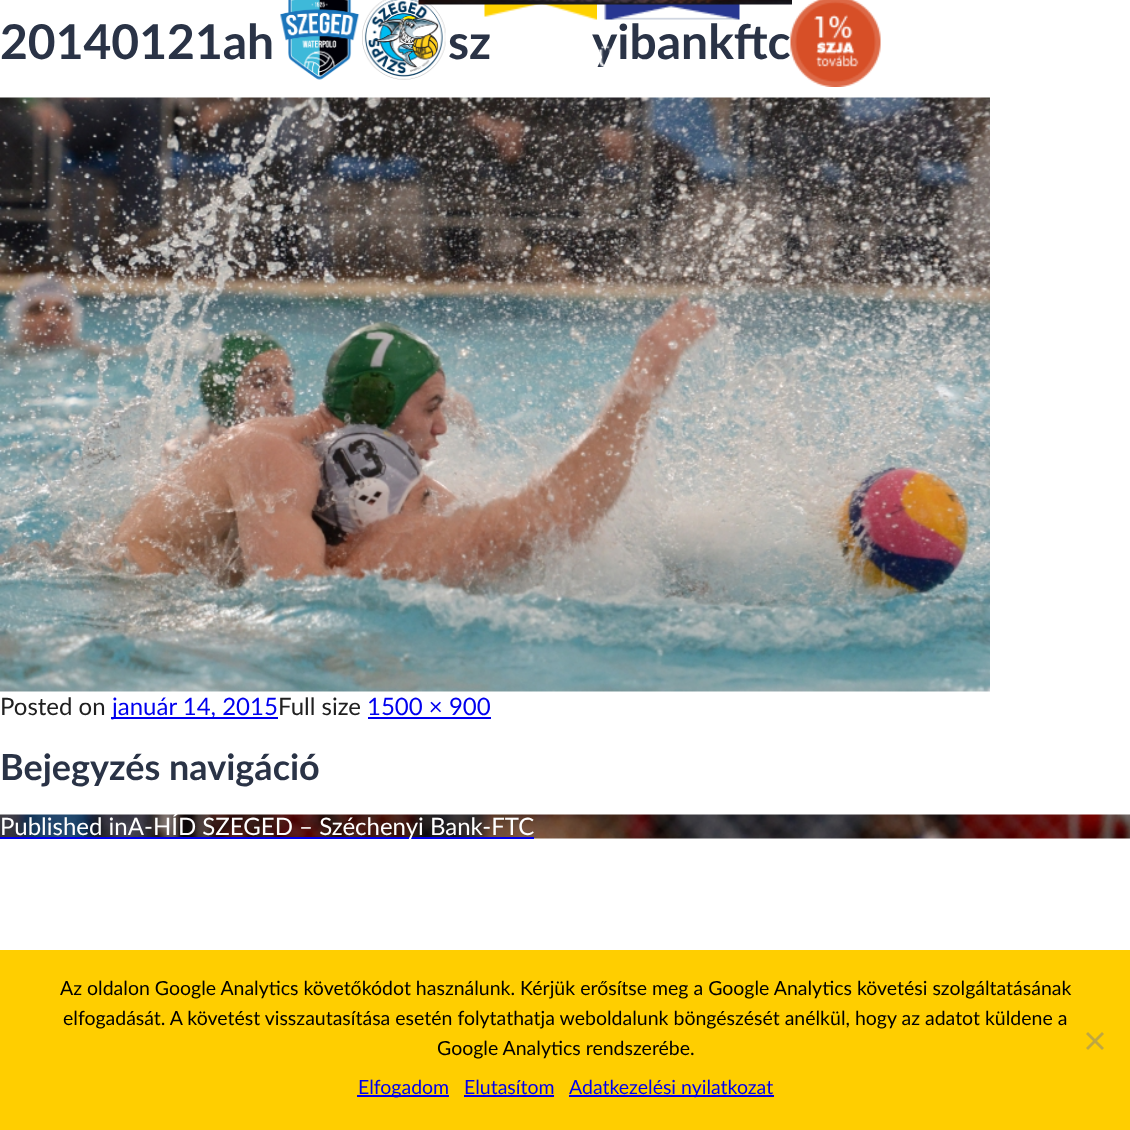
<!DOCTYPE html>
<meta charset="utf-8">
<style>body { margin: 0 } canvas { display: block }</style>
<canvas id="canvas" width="1130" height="1130"></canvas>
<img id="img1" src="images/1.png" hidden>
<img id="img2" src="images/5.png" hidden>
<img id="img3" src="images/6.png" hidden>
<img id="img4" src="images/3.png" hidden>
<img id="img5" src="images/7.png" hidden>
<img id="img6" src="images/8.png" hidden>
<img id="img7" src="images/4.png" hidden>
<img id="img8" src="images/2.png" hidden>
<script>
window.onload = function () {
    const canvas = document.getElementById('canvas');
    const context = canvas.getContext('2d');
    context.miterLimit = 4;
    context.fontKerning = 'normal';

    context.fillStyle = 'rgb(255, 255, 255)';
    context.fillRect(0, 0, 1130, 1130);
    context.drawImage(document.getElementById('img1'), 280, 0, 166, 80);
    context.drawImage(document.getElementById('img2'), 484, 4, 113, 16);
    context.drawImage(document.getElementById('img3'), 604, 4, 136, 16);
    context.drawImage(document.getElementById('img4'), 418, 0, 374, 5);
    context.drawImage(document.getElementById('img5'), 0, 97, 990, 595);
    context.fillStyle = 'rgb(0, 0, 238)';
    context.fillRect(111, 717, 167, 2);
    context.fillRect(368, 717, 123, 2);
    context.drawImage(document.getElementById('img6'), 0, 814, 1130, 25);
    context.fillRect(0, 837, 534, 2);
    context.fillStyle = 'rgb(255, 206, 0)';
    context.fillRect(0, 950, 1130, 180);
    context.fillStyle = 'rgb(192, 167, 64)';
    context.beginPath();
    context.moveTo(1102, 1032);
    context.lineTo(1104, 1034);
    context.lineTo(1088, 1050);
    context.lineTo(1086, 1048);
    context.closePath();
    context.fill();
    context.beginPath();
    context.moveTo(1086, 1034);
    context.lineTo(1088, 1032);
    context.lineTo(1104, 1048);
    context.lineTo(1102, 1050);
    context.closePath();
    context.fill();
    context.fillStyle = 'rgb(0, 0, 238)';
    context.fillRect(357, 1095, 92, 2);
    context.fillRect(464, 1095, 90, 2);
    context.fillRect(569, 1095, 205, 2);
    context.font = 'bold 48px Lato';
    context.fillStyle = 'rgb(42, 51, 70)';
    context.fillText('20140121ah', 0, 59);
    context.fillText('sz', 448, 59);
    context.fillText('yibankftc', 592, 59);
    context.drawImage(document.getElementById('img7'), 790, 0, 91, 87);
    context.drawImage(document.getElementById('img8'), 493, 44, 119, 23);
    context.font = '24px Lato';
    context.fillStyle = 'rgb(32, 32, 32)';
    context.fillText('Posted on', 0, 715);
    context.fillStyle = 'rgb(0, 0, 238)';
    context.fillText('január 14, 2015', 112, 715);
    context.fillStyle = 'rgb(32, 32, 32)';
    context.fillText('Full size', 278, 715);
    context.fillStyle = 'rgb(0, 0, 238)';
    context.fillText('1500 × 900', 367, 715);
    context.font = 'bold 36px Lato';
    context.fillStyle = 'rgb(42, 51, 70)';
    context.fillText('Bejegyzés navigáció', 0, 780);
    context.font = '24px Lato';
    context.fillStyle = 'rgb(255, 255, 255)';
    context.fillText('Published inA-HÍD SZEGED – Széchenyi Bank-FTC', 0, 835);
    context.font = '19.5px Lato';
    context.fillStyle = 'rgb(0, 0, 0)';
    context.fillText('Az oldalon Google Analytics követőkódot használunk. Kérjük erősítse meg a Google Analytics követési szolgáltatásának', 60, 995);
    context.fillText('elfogadását. A követést visszautasítása esetén folytathatja weboldalunk böngészését anélkül, hogy az adatot küldene a', 63, 1025);
    context.fillText('Google Analytics rendszerébe.', 437, 1055);
    context.fillStyle = 'rgb(0, 0, 238)';
    context.fillText('Elfogadom', 358, 1094);
    context.fillText('Elutasítom', 464, 1094);
    context.fillText('Adatkezelési nyilatkozat', 569, 1094);
};
</script>
